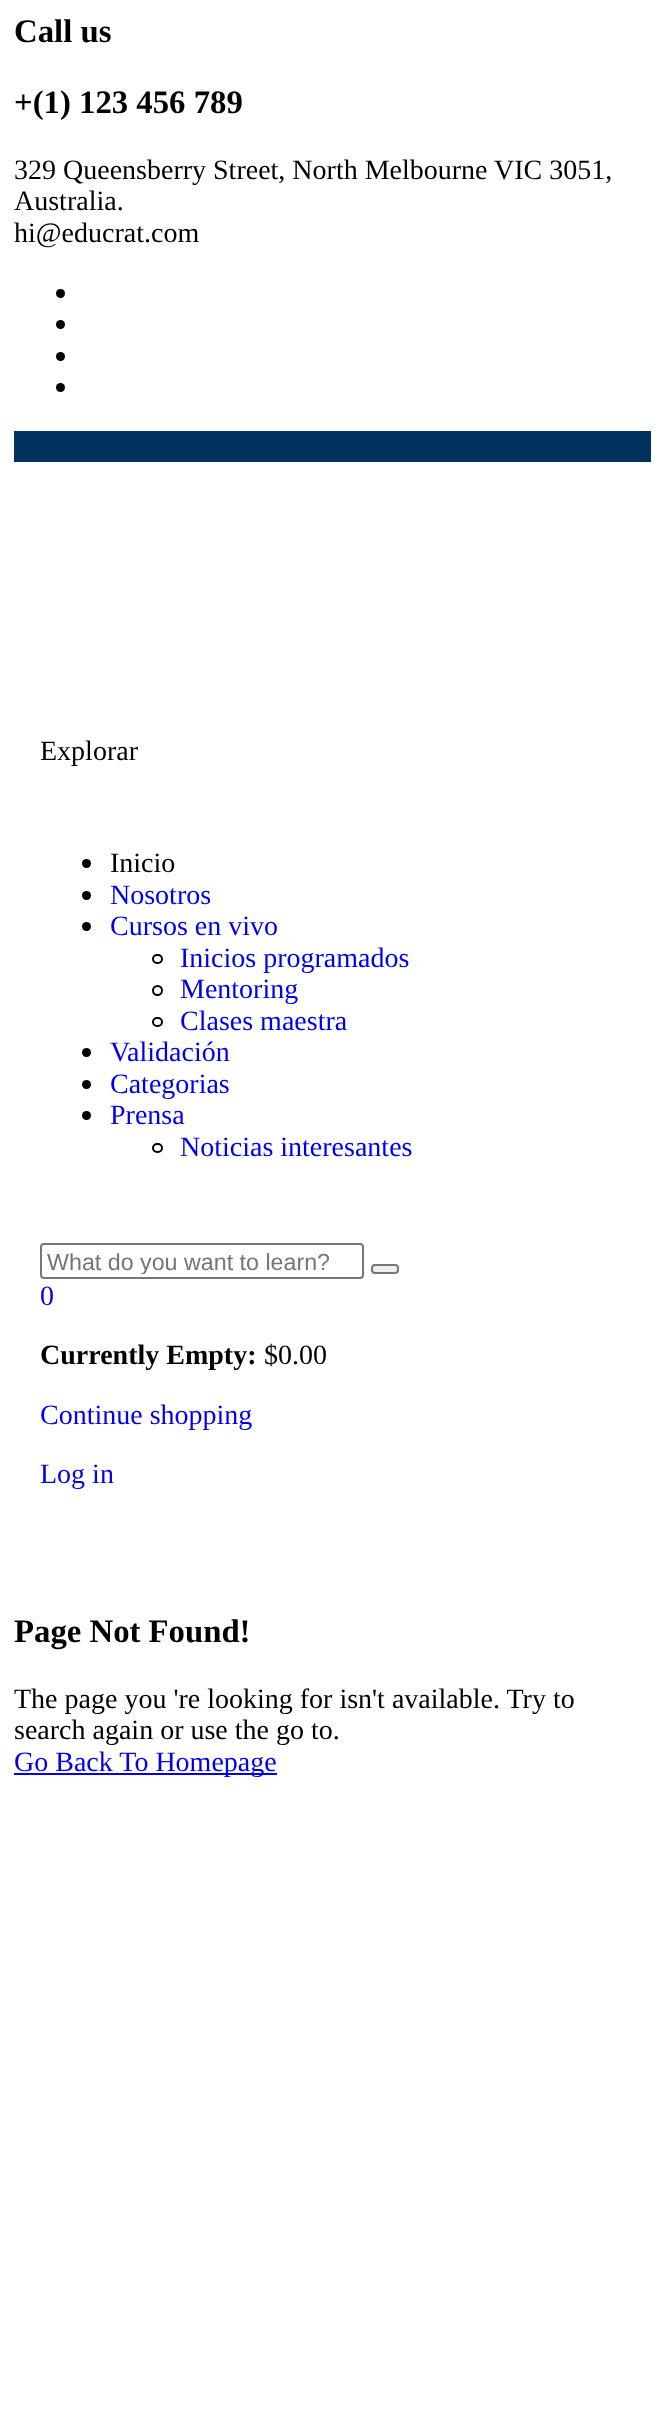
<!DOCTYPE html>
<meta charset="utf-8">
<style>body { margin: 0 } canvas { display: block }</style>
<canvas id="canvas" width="664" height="2427"></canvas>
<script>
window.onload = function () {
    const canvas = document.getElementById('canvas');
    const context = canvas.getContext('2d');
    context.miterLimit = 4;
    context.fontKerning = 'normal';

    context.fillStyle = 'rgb(255, 255, 255)';
    context.fillRect(0, 0, 664, 2427);
    context.fillStyle = 'rgb(0, 0, 0)';
    context.beginPath();
    context.arc(60.5, 293.5, 4.5, 0, 2 * Math.PI);
    context.fill();
    context.beginPath();
    context.arc(60.5, 324.5, 4.5, 0, 2 * Math.PI);
    context.fill();
    context.beginPath();
    context.arc(60.5, 356.5, 4.5, 0, 2 * Math.PI);
    context.fill();
    context.beginPath();
    context.arc(60.5, 387.5, 4.5, 0, 2 * Math.PI);
    context.fill();
    context.fillStyle = 'rgb(0, 50, 95)';
    context.fillRect(14, 431, 637, 31);
    context.fillStyle = 'rgb(0, 0, 0)';
    context.beginPath();
    context.arc(86.5, 863.5, 4.5, 0, 2 * Math.PI);
    context.fill();
    context.beginPath();
    context.arc(86.5, 895.5, 4.5, 0, 2 * Math.PI);
    context.fill();
    context.beginPath();
    context.arc(86.5, 926.5, 4.5, 0, 2 * Math.PI);
    context.fill();
    context.beginPath();
    context.roundRect(153, 955, 9, 8, 4);
    context.strokeStyle = 'rgb(0, 0, 0)';
    context.lineWidth = 2;
    context.stroke();
    context.beginPath();
    context.arc(157.5, 990.5, 4.5, 0, 2 * Math.PI);
    context.stroke();
    context.beginPath();
    context.roundRect(153, 1018, 9, 8, 4);
    context.stroke();
    context.beginPath();
    context.arc(86.5, 1052.5, 4.5, 0, 2 * Math.PI);
    context.fill();
    context.beginPath();
    context.arc(86.5, 1084.5, 4.5, 0, 2 * Math.PI);
    context.fill();
    context.beginPath();
    context.arc(86.5, 1115.5, 4.5, 0, 2 * Math.PI);
    context.fill();
    context.beginPath();
    context.roundRect(153, 1144, 9, 8, 4);
    context.stroke();
    context.beginPath();
    context.roundRect(41, 1244, 322, 34, 3);
    context.strokeStyle = 'rgb(118, 118, 118)';
    context.stroke();
    context.fillStyle = 'rgb(239, 239, 239)';
    context.beginPath();
    context.roundRect(372, 1265, 26, 8, 3);
    context.fill();
    context.stroke();
    context.fillStyle = 'rgb(0, 0, 238)';
    context.fillRect(14, 1773, 263, 2);
    context.font = 'bold 32.75px Liberation Serif';
    context.fillStyle = 'rgb(0, 0, 0)';
    context.fillText('Call us', 14, 42);
    context.fillText('+(1) 123 456 789', 14, 113);
    context.font = '28px Liberation Serif';
    context.fillText('329 Queensberry Street, North Melbourne VIC 3051,', 14, 179);
    context.fillText('Australia.', 14, 210);
    context.fillText('hi@educrat.com', 14, 242);
    context.fillText('Explorar', 40, 760);
    context.fillText('Inicio', 110, 872);
    context.fillStyle = 'rgb(0, 0, 238)';
    context.fillText('Nosotros', 110, 904);
    context.fillText('Cursos en vivo', 110, 935);
    context.fillText('Inicios programados', 180, 967);
    context.fillText('Mentoring', 180, 998);
    context.fillText('Clases maestra', 180, 1030);
    context.fillText('Validación', 110, 1061);
    context.fillText('Categorias', 110, 1093);
    context.fillText('Prensa', 110, 1124);
    context.fillText('Noticias interesantes', 180, 1156);
    context.save();
    context.beginPath();
    context.rect(47, 1248, 310, 26);
    context.clip();
    context.font = '23.25px Liberation Sans';
    context.fillStyle = 'rgb(117, 117, 117)';
    context.fillText('What do you want to learn?', 47, 1270);
    context.restore();
    context.fillText('0', 40, 1305);
    context.font = 'bold 28px Liberation Serif';
    context.fillStyle = 'rgb(0, 0, 0)';
    context.fillText('Currently Empty:', 40, 1364);
    context.font = '28px Liberation Serif';
    context.fillText('$0.00', 264, 1364);
    context.fillStyle = 'rgb(0, 0, 238)';
    context.fillText('Continue shopping', 40, 1424);
    context.fillText('Log in', 40, 1483);
    context.font = 'bold 32.75px Liberation Serif';
    context.fillStyle = 'rgb(0, 0, 0)';
    context.fillText('Page Not Found!', 14, 1642);
    context.font = '28px Liberation Serif';
    context.fillText('The page you \'re looking for isn\'t available. Try to', 14, 1708);
    context.fillText('search again or use the go to.', 14, 1739);
    context.fillStyle = 'rgb(0, 0, 238)';
    context.fillText('Go Back To Homepage', 14, 1771);
};
</script>
